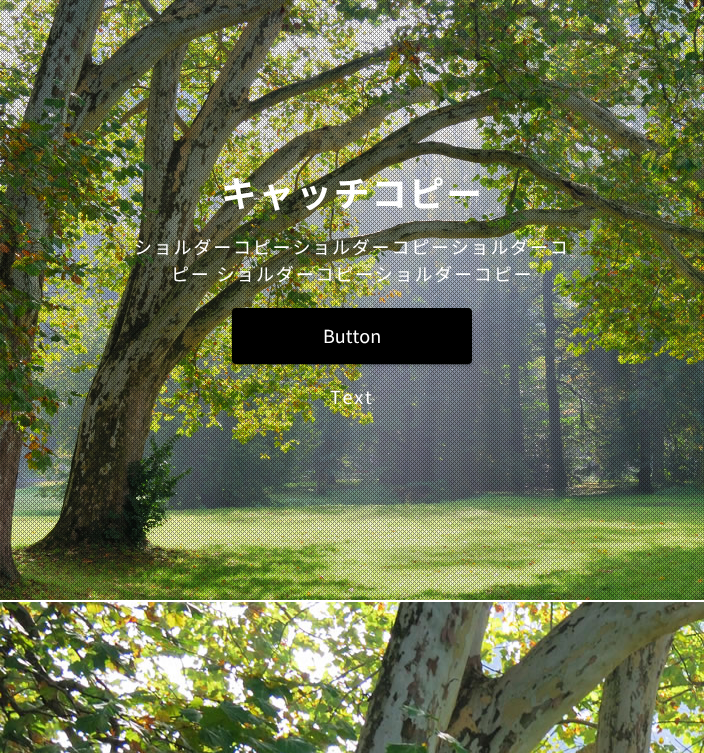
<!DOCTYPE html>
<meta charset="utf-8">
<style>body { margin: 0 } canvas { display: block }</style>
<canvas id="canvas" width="704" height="753"></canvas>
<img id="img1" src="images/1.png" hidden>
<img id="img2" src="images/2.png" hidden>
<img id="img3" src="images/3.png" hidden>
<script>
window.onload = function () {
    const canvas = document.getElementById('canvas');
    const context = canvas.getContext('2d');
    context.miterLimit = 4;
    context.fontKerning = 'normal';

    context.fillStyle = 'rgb(255, 255, 255)';
    context.fillRect(0, 0, 704, 753);
    context.drawImage(document.getElementById('img1'), 0, 0, 704, 600);
    context.drawImage(document.getElementById('img2'), 0, 0, 704, 600);
    context.fillStyle = 'rgba(0, 0, 0, 0.2)';
    context.filter = 'blur(0.5px)';
    context.beginPath();
    context.roundRect(234, 313, 236, 52, 2);
    context.fill();
    context.filter = 'none';
    context.fillStyle = 'rgba(0, 0, 0, 0.12)';
    context.filter = 'blur(2.5px)';
    context.beginPath();
    context.roundRect(232, 309, 240, 56, 4);
    context.fill();
    context.filter = 'none';
    context.filter = 'blur(1px)';
    context.beginPath();
    context.roundRect(232, 310, 240, 56, 4);
    context.fill();
    context.filter = 'none';
    context.fillStyle = 'rgb(0, 0, 0)';
    context.beginPath();
    context.roundRect(232, 308, 240, 56, 4);
    context.fill();
    context.drawImage(document.getElementById('img3'), 0, 602, 704, 151);
    context.letterSpacing = '1.8px';
    context.font = 'bold 35.75px Noto Sans CJK JP';
    context.fillStyle = 'rgb(255, 255, 255)';
    context.fillText('キャッチコピー', 221, 207);
    context.font = '18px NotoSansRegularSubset';
    context.fillText('ショルダーコピーショルダーコピーショルダーコ', 134, 254);
    context.fillText('ピー ショルダーコピーショルダーコピー', 171, 281);
    context.letterSpacing = '0px';
    context.fillText('Button', 323, 343);
    context.letterSpacing = '1.8px';
    context.fillText('Text', 330, 404);
};
</script>
